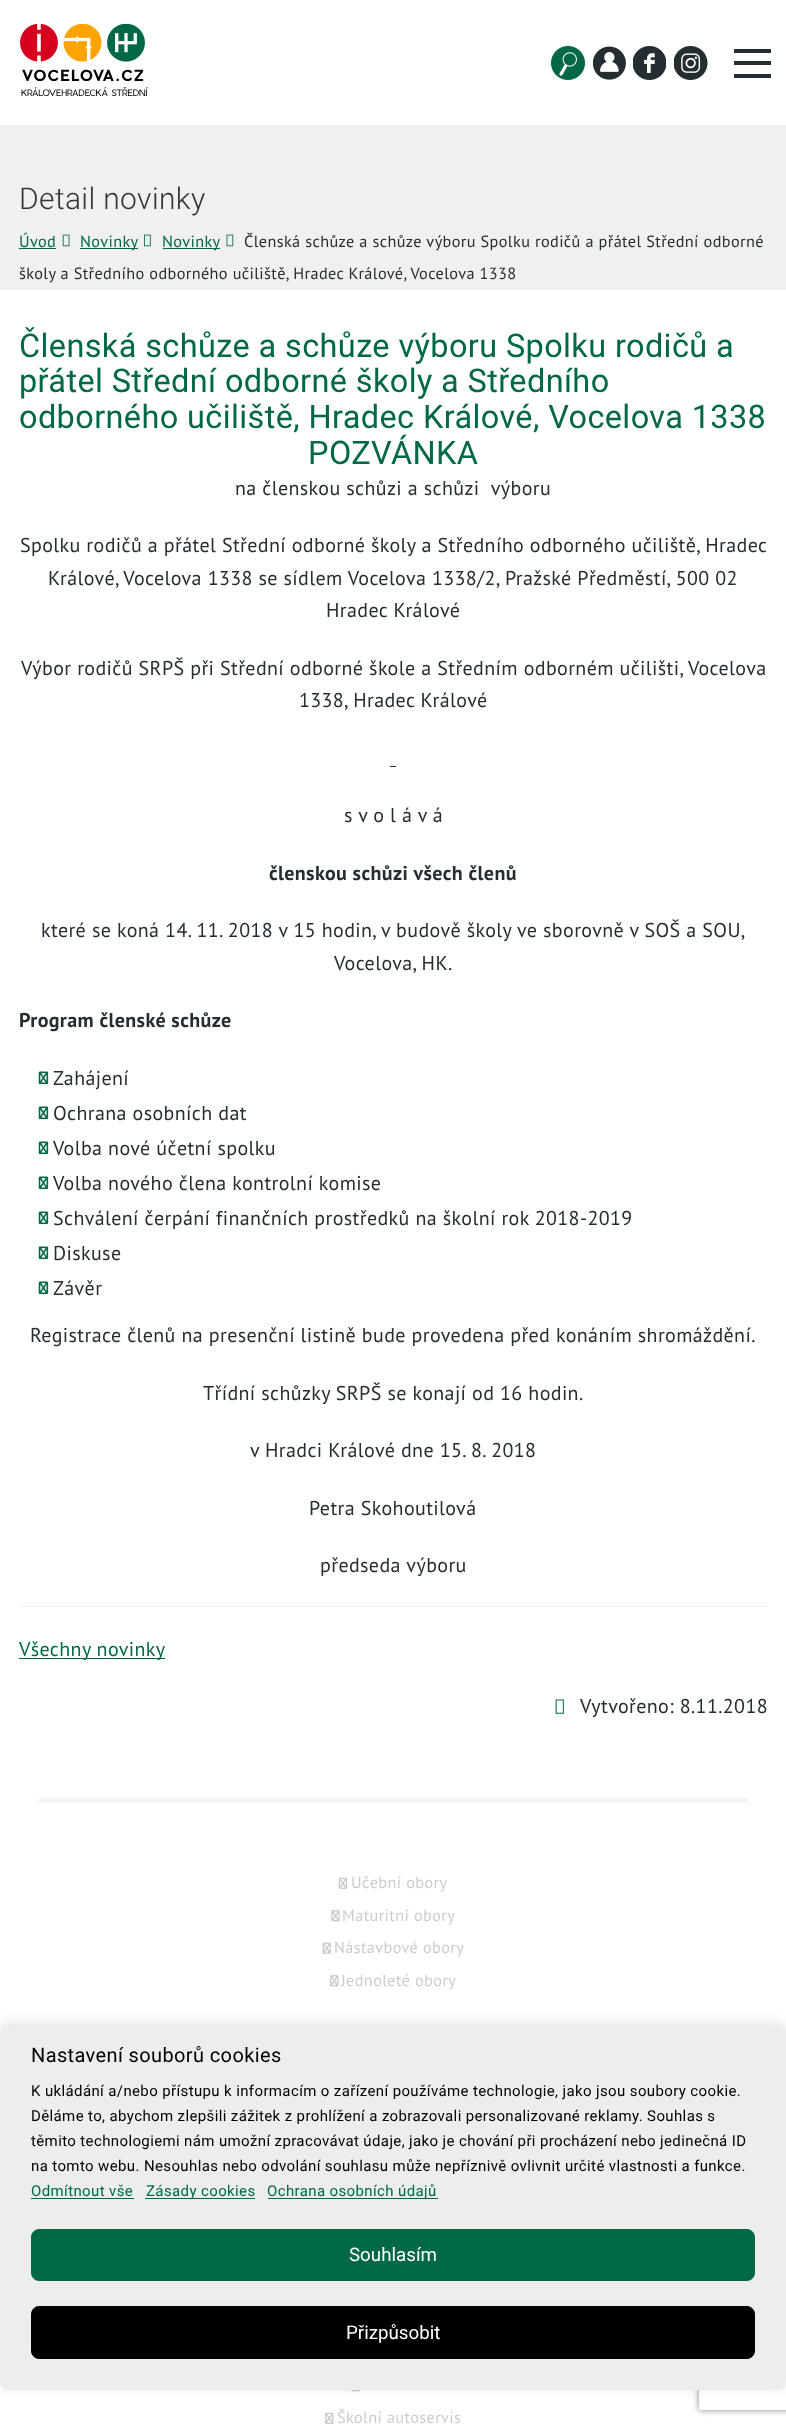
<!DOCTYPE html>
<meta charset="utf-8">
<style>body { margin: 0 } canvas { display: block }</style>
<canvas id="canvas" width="786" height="2427"></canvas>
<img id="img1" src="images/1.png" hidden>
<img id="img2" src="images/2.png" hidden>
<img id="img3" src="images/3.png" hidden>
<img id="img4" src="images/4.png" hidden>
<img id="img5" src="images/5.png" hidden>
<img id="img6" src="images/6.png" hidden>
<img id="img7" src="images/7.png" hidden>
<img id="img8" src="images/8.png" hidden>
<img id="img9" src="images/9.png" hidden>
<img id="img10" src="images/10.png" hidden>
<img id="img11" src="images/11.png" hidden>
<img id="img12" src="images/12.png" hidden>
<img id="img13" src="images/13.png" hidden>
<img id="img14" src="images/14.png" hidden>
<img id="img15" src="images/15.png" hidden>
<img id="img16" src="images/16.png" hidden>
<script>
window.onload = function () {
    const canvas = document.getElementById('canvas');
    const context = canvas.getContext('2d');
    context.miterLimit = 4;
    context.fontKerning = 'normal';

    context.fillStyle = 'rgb(255, 255, 255)';
    context.fillRect(0, 0, 786, 2427);
    context.drawImage(document.getElementById('img1'), 551, 46, 34, 34);
    context.drawImage(document.getElementById('img2'), 593, 46, 33, 34);
    context.drawImage(document.getElementById('img3'), 633, 46, 33, 34);
    context.drawImage(document.getElementById('img4'), 674, 46, 34, 34);
    context.fillStyle = 'rgb(36, 45, 50)';
    context.fillRect(734, 61, 37, 4);
    context.fillRect(734, 49, 37, 4);
    context.fillRect(734, 74, 37, 4);
    context.drawImage(document.getElementById('img5'), 20, 24, 125, 38);
    context.fillStyle = 'rgb(240, 240, 240)';
    context.fillRect(0, 125, 786, 165);
    context.fillStyle = 'rgb(0, 104, 69)';
    context.fillRect(19, 248, 37, 1);
    context.drawImage(document.getElementById('img6'), 62, 234, 8, 13);
    context.fillRect(80, 248, 58, 1);
    context.drawImage(document.getElementById('img7'), 144, 234, 7, 13);
    context.fillRect(163, 248, 57, 1);
    context.drawImage(document.getElementById('img8'), 226, 234, 8, 13);
    context.fillStyle = 'rgb(36, 45, 50)';
    context.fillRect(390, 766, 6, 1);
    context.drawImage(document.getElementById('img9'), 38, 1071, 11, 14);
    context.drawImage(document.getElementById('img9'), 38, 1106, 11, 14);
    context.drawImage(document.getElementById('img9'), 38, 1141, 11, 14);
    context.drawImage(document.getElementById('img9'), 38, 1176, 11, 14);
    context.drawImage(document.getElementById('img9'), 38, 1211, 11, 14);
    context.drawImage(document.getElementById('img9'), 38, 1246, 11, 14);
    context.drawImage(document.getElementById('img9'), 38, 1281, 11, 14);
    context.fillStyle = 'rgb(238, 238, 238)';
    context.fillRect(19, 1606, 749, 1);
    context.fillStyle = 'rgb(0, 104, 69)';
    context.fillRect(19, 1658, 146, 1);
    context.drawImage(document.getElementById('img10'), 555, 1699, 9, 15);
    context.fillStyle = 'rgb(243, 244, 244)';
    context.fillRect(39, 1798, 709, 5);
    context.drawImage(document.getElementById('img11'), 338, 1877, 10, 12);
    context.drawImage(document.getElementById('img12'), 331, 1910, 9, 12);
    context.drawImage(document.getElementById('img13'), 322, 1942, 9, 12);
    context.drawImage(document.getElementById('img14'), 330, 1975, 9, 12);
    context.drawImage(document.getElementById('img15'), 351, 2390, 9, 2);
    context.drawImage(document.getElementById('img16'), 325, 2412, 9, 12);
    context.fillStyle = 'rgba(0, 0, 0, 0.1)';
    context.filter = 'blur(6px)';
    context.beginPath();
    context.roundRect(0, 2023, 786, 365, 8);
    context.fill();
    context.filter = 'none';
    context.save();
    context.beginPath();
    context.moveTo(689, 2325);
    context.lineTo(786, 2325);
    context.lineTo(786, 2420);
    context.lineTo(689, 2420);
    context.closePath();
    context.moveTo(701.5, 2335);
    context.lineTo(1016.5, 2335);
    context.bezierCurveTo(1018, 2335, 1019, 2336, 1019, 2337.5);
    context.lineTo(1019, 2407.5);
    context.bezierCurveTo(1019, 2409, 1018, 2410, 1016.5, 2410);
    context.lineTo(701.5, 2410);
    context.bezierCurveTo(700, 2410, 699, 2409, 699, 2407.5);
    context.lineTo(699, 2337.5);
    context.bezierCurveTo(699, 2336, 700, 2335, 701.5, 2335);
    context.closePath();
    context.clip('evenodd');
    context.fillStyle = 'rgb(128, 128, 128)';
    context.filter = 'blur(3px)';
    context.beginPath();
    context.roundRect(699, 2335, 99, 75, 2.5);
    context.fill();
    context.filter = 'none';
    context.restore();
    context.fillStyle = 'rgb(237, 237, 235)';
    context.beginPath();
    context.roundRect(0, 2025, 786, 365, 8);
    context.fill();
    context.fillStyle = 'rgb(0, 104, 69)';
    context.fillRect(31, 2198, 103, 1);
    context.fillRect(145, 2198, 110, 1);
    context.fillRect(268, 2198, 170, 1);
    context.beginPath();
    context.roundRect(31.5, 2229.5, 723, 51, 7.5);
    context.fill();
    context.strokeStyle = 'rgb(0, 104, 69)';
    context.stroke();
    context.fillStyle = 'rgb(0, 0, 0)';
    context.beginPath();
    context.roundRect(31.5, 2306.5, 723, 52, 7.5);
    context.fill();
    context.strokeStyle = 'rgb(0, 0, 0)';
    context.stroke();
    context.letterSpacing = '1.4px';
    context.font = 'bold 15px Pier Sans';
    context.fillText('VOCELOVA.CZ', 22, 81);
    context.letterSpacing = '0px';
    context.font = '300 8.75px Pier Sans';
    context.fillText('KRÁLOVEHRADECKÁ STŘEDNÍ', 21, 96);
    context.letterSpacing = '0.38px';
    context.font = '300 30px Roboto';
    context.fillStyle = 'rgb(52, 52, 52)';
    context.fillText('Detail novinky', 19, 209);
    context.font = '16.25px PT Sans';
    context.fillStyle = 'rgb(0, 104, 69)';
    context.fillText('Úvod', 19, 247);
    context.fillText('Novinky', 80, 247);
    context.fillText('Novinky', 162, 247);
    context.fillStyle = 'rgb(36, 45, 50)';
    context.fillText('Členská schůze a schůze výboru Spolku rodičů a přátel Střední odborné', 244, 247);
    context.fillText('školy a Středního odborného učiliště, Hradec Králové, Vocelova 1338', 19, 279);
    context.font = '32.5px Roboto';
    context.fillStyle = 'rgb(0, 104, 69)';
    context.fillText('Členská schůze a schůze výboru Spolku rodičů a', 19, 357);
    context.fillText('přátel Střední odborné školy a Středního', 19, 392);
    context.fillText('odborného učiliště, Hradec Králové, Vocelova 1338', 19, 428);
    context.fillText('POZVÁNKA', 308, 464);
    context.font = '20px PT Sans';
    context.fillStyle = 'rgb(36, 45, 50)';
    context.fillText('na členskou schůzi a schůzi  výboru', 235, 495);
    context.fillText('Spolku rodičů a přátel Střední odborné školy a Středního odborného učiliště, Hradec', 20, 552);
    context.fillText('Králové, Vocelova 1338 se sídlem Vocelova 1338/2, Pražské Předměstí, 500 02', 48, 585);
    context.fillText('Hradec Králové', 326, 617);
    context.fillText('Výbor rodičů SRPŠ při Střední odborné škole a Středním odborném učilišti, Vocelova', 21, 675);
    context.fillText('1338, Hradec Králové', 299, 707);
    context.fillText('s v o l á v á', 344, 822);
    context.font = 'bold 20px PT Sans';
    context.fillText('členskou schůzi všech členů', 269, 880);
    context.font = '20px PT Sans';
    context.fillText('které se koná 14. 11. 2018 v 15 hodin, v budově školy ve sborovně v SOŠ a SOU,', 41, 937);
    context.fillText('Vocelova, HK.', 334, 970);
    context.font = 'bold 20px PT Sans';
    context.fillText('Program členské schůze', 19, 1027);
    context.font = '20px PT Sans';
    context.fillText('Zahájení', 53, 1085);
    context.fillText('Ochrana osobních dat', 53, 1120);
    context.fillText('Volba nové účetní spolku', 53, 1155);
    context.fillText('Volba nového člena kontrolní komise', 53, 1190);
    context.fillText('Schválení čerpání finančních prostředků na školní rok 2018-2019', 53, 1225);
    context.fillText('Diskuse', 53, 1260);
    context.fillText('Závěr', 53, 1295);
    context.fillText('Registrace členů na presenční listině bude provedena před konáním shromáždění.', 30, 1342);
    context.fillText('Třídní schůzky SRPŠ se konají od 16 hodin.', 203, 1400);
    context.fillText('v Hradci Králové dne 15. 8. 2018', 250, 1457);
    context.fillText('Petra Skohoutilová', 309, 1515);
    context.fillText('předseda výboru', 320, 1572);
    context.fillStyle = 'rgb(0, 104, 69)';
    context.fillText('Všechny novinky', 19, 1656);
    context.fillStyle = 'rgb(36, 45, 50)';
    context.fillText('Vytvořeno: 8.11.2018', 580, 1713);
    context.font = '16.25px PT Sans';
    context.fillStyle = 'rgb(204, 204, 204)';
    context.fillText('Učební obory', 351, 1888);
    context.fillText('Maturitní obory', 342, 1921);
    context.fillText('Nástavbové obory', 334, 1953);
    context.fillText('Jednoleté obory', 341, 1986);
    context.fillText('Školní autoservis', 337, 2423);
    context.font = '20px Roboto';
    context.fillStyle = 'rgb(0, 0, 0)';
    context.fillText('Nastavení souborů cookies', 31, 2062);
    context.font = '15px Roboto';
    context.fillText('K ukládání a/nebo přístupu k informacím o zařízení používáme technologie, jako jsou soubory cookie.', 31, 2096);
    context.fillText('Děláme to, abychom zlepšili zážitek z prohlížení a zobrazovali personalizované reklamy. Souhlas s', 31, 2121);
    context.fillText('těmito technologiemi nám umožní zpracovávat údaje, jako je chování při procházení nebo jedinečná ID', 31, 2146);
    context.fillText('na tomto webu. Nesouhlas nebo odvolání souhlasu může nepříznivě ovlivnit určité vlastnosti a funkce.', 31, 2171);
    context.fillStyle = 'rgb(0, 104, 69)';
    context.fillText('Odmítnout vše', 31, 2196);
    context.fillText('Zásady cookies', 146, 2196);
    context.fillText('Ochrana osobních údajů', 267, 2196);
    context.letterSpacing = '0px';
    context.font = '18.75px Roboto';
    context.fillStyle = 'rgb(255, 255, 255)';
    context.fillText('Souhlasím', 349, 2261);
    context.fillText('Přizpůsobit', 346, 2339);
};
</script>
